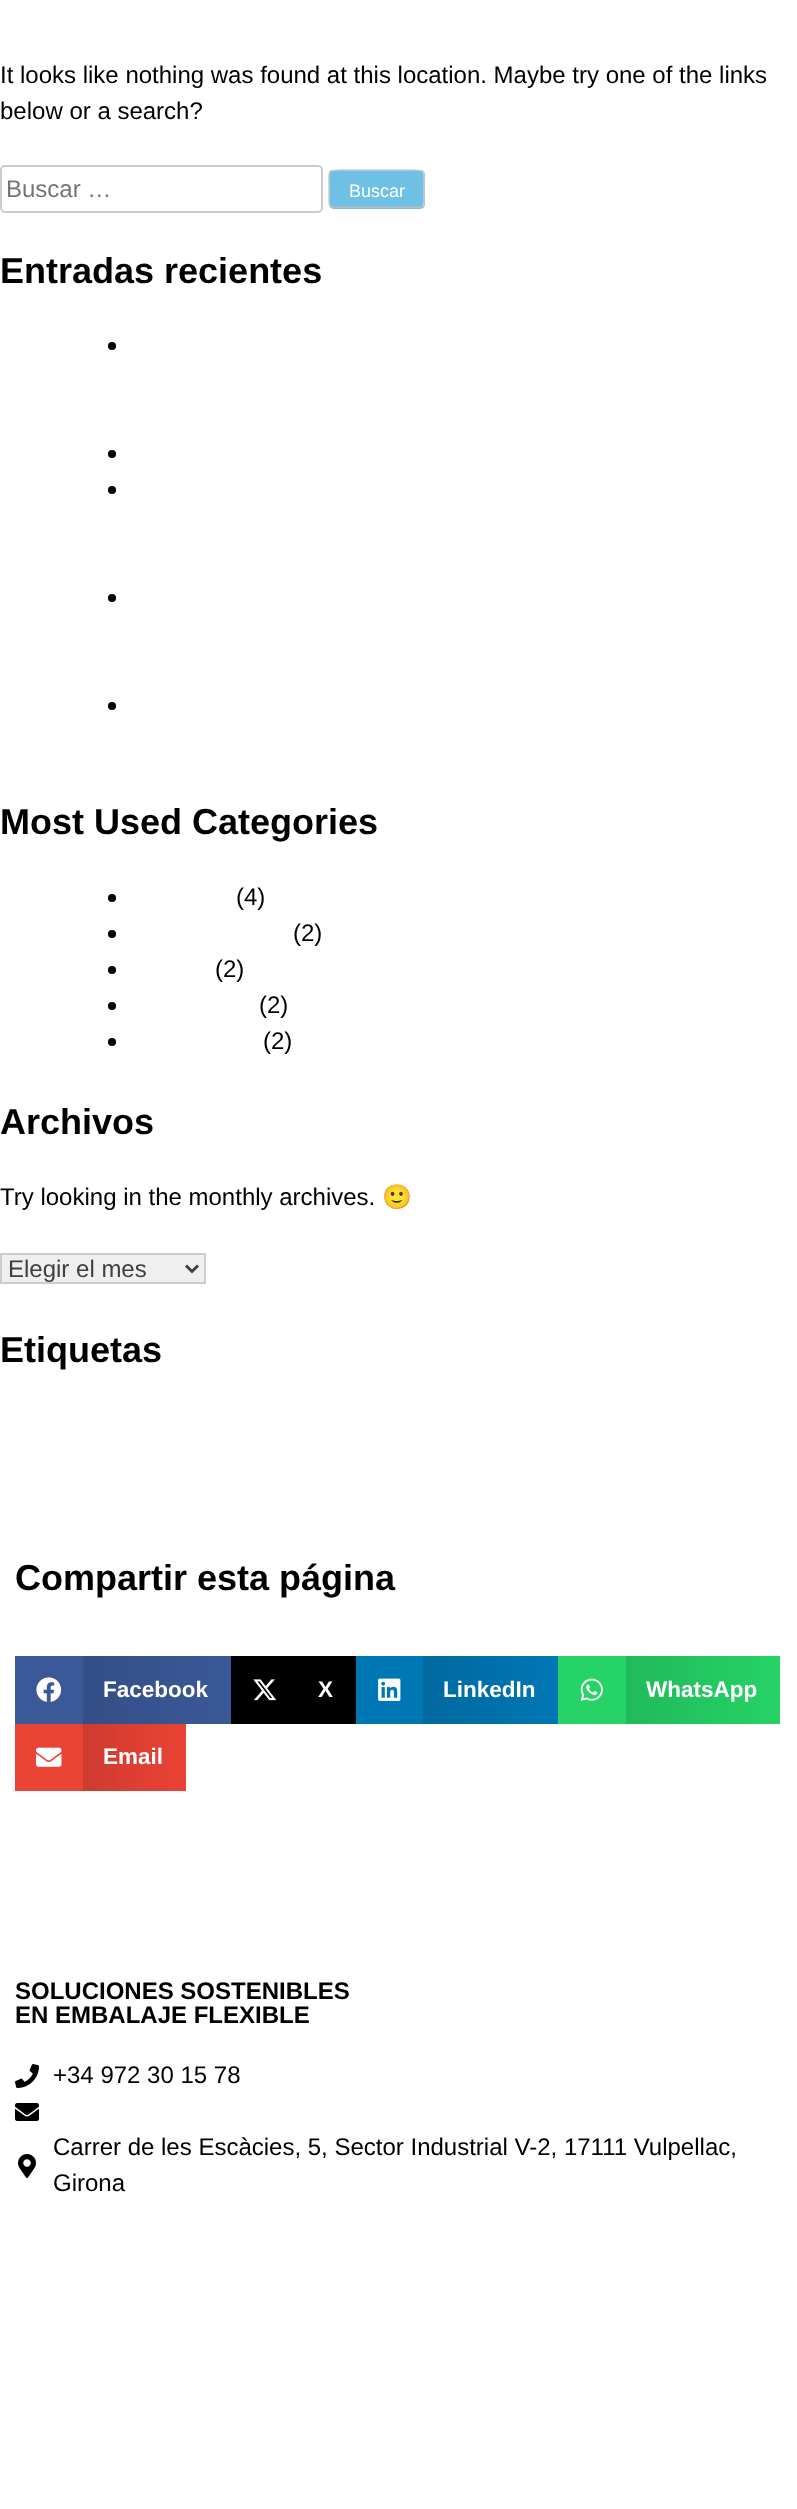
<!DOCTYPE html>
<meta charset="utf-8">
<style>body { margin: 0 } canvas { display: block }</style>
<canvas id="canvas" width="797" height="2509"></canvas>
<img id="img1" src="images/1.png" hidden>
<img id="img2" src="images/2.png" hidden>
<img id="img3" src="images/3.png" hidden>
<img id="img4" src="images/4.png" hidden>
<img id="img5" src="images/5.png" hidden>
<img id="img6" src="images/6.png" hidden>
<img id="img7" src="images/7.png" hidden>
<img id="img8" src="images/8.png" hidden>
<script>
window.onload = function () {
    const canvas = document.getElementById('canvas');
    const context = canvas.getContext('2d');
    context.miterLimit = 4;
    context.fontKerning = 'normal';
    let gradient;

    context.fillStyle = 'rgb(255, 255, 255)';
    context.fillRect(0, 0, 797, 2509);
    context.beginPath();
    context.roundRect(1, 166, 321, 46, 4);
    context.strokeStyle = 'rgb(204, 204, 204)';
    context.lineWidth = 2;
    context.stroke();
    context.fillStyle = 'rgb(110, 193, 228)';
    context.beginPath();
    context.roundRect(329, 170, 96, 39, 5);
    context.fill();
    context.beginPath();
    context.moveTo(422.5, 206.5);
    context.lineTo(420.5, 207.5);
    context.lineTo(332.5, 207.5);
    context.lineTo(330.5, 206.5);
    context.strokeStyle = 'rgb(187, 187, 187)';
    context.lineWidth = 1.5;
    context.stroke();
    context.beginPath();
    context.moveTo(330.5, 206.5);
    context.bezierCurveTo(328.5, 205, 329, 201, 329, 199);
    context.lineTo(329, 189);
    context.bezierCurveTo(329, 167.5, 325.5, 170, 347.5, 170);
    context.lineTo(405.5, 170);
    context.bezierCurveTo(427.5, 170, 424, 167.5, 424, 189);
    context.lineTo(424, 199);
    context.bezierCurveTo(424, 201, 424.5, 205, 422.5, 206.5);
    context.strokeStyle = 'rgb(204, 204, 204)';
    context.stroke();
    context.fillStyle = 'rgb(0, 0, 0)';
    context.beginPath();
    context.arc(112, 346, 4, 0, 2 * Math.PI);
    context.fill();
    context.beginPath();
    context.arc(112, 454, 4, 0, 2 * Math.PI);
    context.fill();
    context.beginPath();
    context.arc(112, 490, 4, 0, 2 * Math.PI);
    context.fill();
    context.beginPath();
    context.arc(112, 598, 4, 0, 2 * Math.PI);
    context.fill();
    context.beginPath();
    context.arc(112, 706, 4, 0, 2 * Math.PI);
    context.fill();
    context.beginPath();
    context.arc(112, 898, 4, 0, 2 * Math.PI);
    context.fill();
    context.beginPath();
    context.arc(112, 934, 4, 0, 2 * Math.PI);
    context.fill();
    context.beginPath();
    context.arc(112, 970, 4, 0, 2 * Math.PI);
    context.fill();
    context.beginPath();
    context.arc(112, 1006, 4, 0, 2 * Math.PI);
    context.fill();
    context.beginPath();
    context.arc(112, 1042, 4, 0, 2 * Math.PI);
    context.fill();
    context.fillStyle = 'rgb(239, 239, 239)';
    context.beginPath();
    context.rect(1, 1254, 204, 29);
    context.fill();
    context.lineWidth = 2;
    context.stroke();
    context.beginPath();
    context.moveTo(186, 1265.5);
    context.lineTo(192, 1271.5);
    context.lineTo(198, 1265.5);
    context.strokeStyle = 'rgb(64, 64, 64)';
    context.lineWidth = 3;
    context.stroke();
    context.fillStyle = 'rgb(59, 89, 152)';
    context.fillRect(15, 1656, 68, 68);
    context.drawImage(document.getElementById('img1'), 36, 1677, 26, 25);
    gradient = context.createLinearGradient(83, 1690, 231, 1690);
    gradient.addColorStop(0, 'rgb(52, 78, 134)');
    gradient.addColorStop(1, 'rgb(59, 89, 152)');
    context.fillStyle = gradient;
    context.fillRect(83, 1656, 148, 68);
    context.fillStyle = 'rgb(0, 0, 0)';
    context.fillRect(231, 1656, 125, 68);
    context.drawImage(document.getElementById('img2'), 253, 1679, 24, 22);
    context.fillStyle = 'rgb(0, 119, 181)';
    context.fillRect(356, 1656, 67, 68);
    context.drawImage(document.getElementById('img3'), 378, 1678, 23, 23);
    gradient = context.createLinearGradient(423, 1690, 558, 1690);
    gradient.addColorStop(0, 'rgb(0, 105, 159)');
    gradient.addColorStop(1, 'rgb(0, 119, 181)');
    context.fillStyle = gradient;
    context.fillRect(423, 1656, 135, 68);
    context.fillStyle = 'rgb(37, 211, 102)';
    context.fillRect(558, 1656, 68, 68);
    context.drawImage(document.getElementById('img4'), 580, 1678, 23, 23);
    gradient = context.createLinearGradient(626, 1690, 780, 1690);
    gradient.addColorStop(0, 'rgb(33, 186, 90)');
    gradient.addColorStop(1, 'rgb(37, 211, 102)');
    context.fillStyle = gradient;
    context.fillRect(626, 1656, 154, 68);
    context.fillStyle = 'rgb(234, 67, 53)';
    context.fillRect(15, 1724, 68, 67);
    context.drawImage(document.getElementById('img5'), 36, 1747, 26, 20);
    gradient = context.createLinearGradient(83, 1757, 186, 1757);
    gradient.addColorStop(0, 'rgb(206, 59, 47)');
    gradient.addColorStop(1, 'rgb(234, 67, 53)');
    context.fillStyle = gradient;
    context.fillRect(83, 1724, 103, 67);
    context.drawImage(document.getElementById('img6'), 15, 2064, 24, 24);
    context.drawImage(document.getElementById('img7'), 15, 2103, 24, 18);
    context.drawImage(document.getElementById('img8'), 18, 2154, 18, 24);
    context.font = '24px Liberation Sans';
    context.fillStyle = 'rgb(0, 0, 0)';
    context.fillText('It looks like nothing was found at this location. Maybe try one of the links', 0, 83);
    context.fillText('below or a search?', 0, 119);
    context.fillStyle = 'rgb(117, 117, 117)';
    context.fillText('Buscar …', 6, 197);
    context.font = '18px Liberation Sans';
    context.fillStyle = 'rgb(255, 255, 255)';
    context.fillText('Buscar', 349, 197);
    context.font = 'bold 36px Liberation Sans';
    context.fillStyle = 'rgb(0, 0, 0)';
    context.fillText('Entradas recientes', 0, 283);
    context.fillText('Most Used Categories', 0, 834);
    context.font = '24px Liberation Sans';
    context.fillText('(4)', 236, 905);
    context.fillText('(2)', 293, 941);
    context.fillText('(2)', 215, 977);
    context.fillText('(2)', 259, 1013);
    context.fillText('(2)', 263, 1049);
    context.font = 'bold 36px Liberation Sans';
    context.fillText('Archivos', 0, 1134);
    context.font = '24px Liberation Sans';
    context.fillText('Try looking in the monthly archives.', 0, 1205);
    context.font = '24px Noto Color Emoji';
    context.fillText('🙂', 382, 1205);
    context.font = '24px Liberation Sans';
    context.fillStyle = 'rgb(64, 64, 64)';
    context.fillText('Elegir el mes', 8, 1277);
    context.font = 'bold 36px Liberation Sans';
    context.fillStyle = 'rgb(0, 0, 0)';
    context.fillText('Etiquetas', 0, 1362);
    context.fillText('Compartir esta página', 15, 1590);
    context.font = 'bold 22.5px Liberation Sans';
    context.fillStyle = 'rgb(255, 255, 255)';
    context.fillText('Facebook', 103, 1697);
    context.fillText('X', 318, 1697);
    context.fillText('LinkedIn', 443, 1697);
    context.fillText('WhatsApp', 646, 1697);
    context.fillText('Email', 103, 1764);
    context.font = 'bold 24px Liberation Sans';
    context.fillStyle = 'rgb(0, 0, 0)';
    context.fillText('SOLUCIONES SOSTENIBLES', 15, 1999);
    context.fillText('EN EMBALAJE FLEXIBLE', 15, 2023);
    context.font = '24px Liberation Sans';
    context.fillText('+34 972 30 15 78', 53, 2083);
    context.fillText('Carrer de les Escàcies, 5, Sector Industrial V-2, 17111 Vulpellac,', 53, 2155);
    context.fillText('Girona', 53, 2191);
};
</script>
